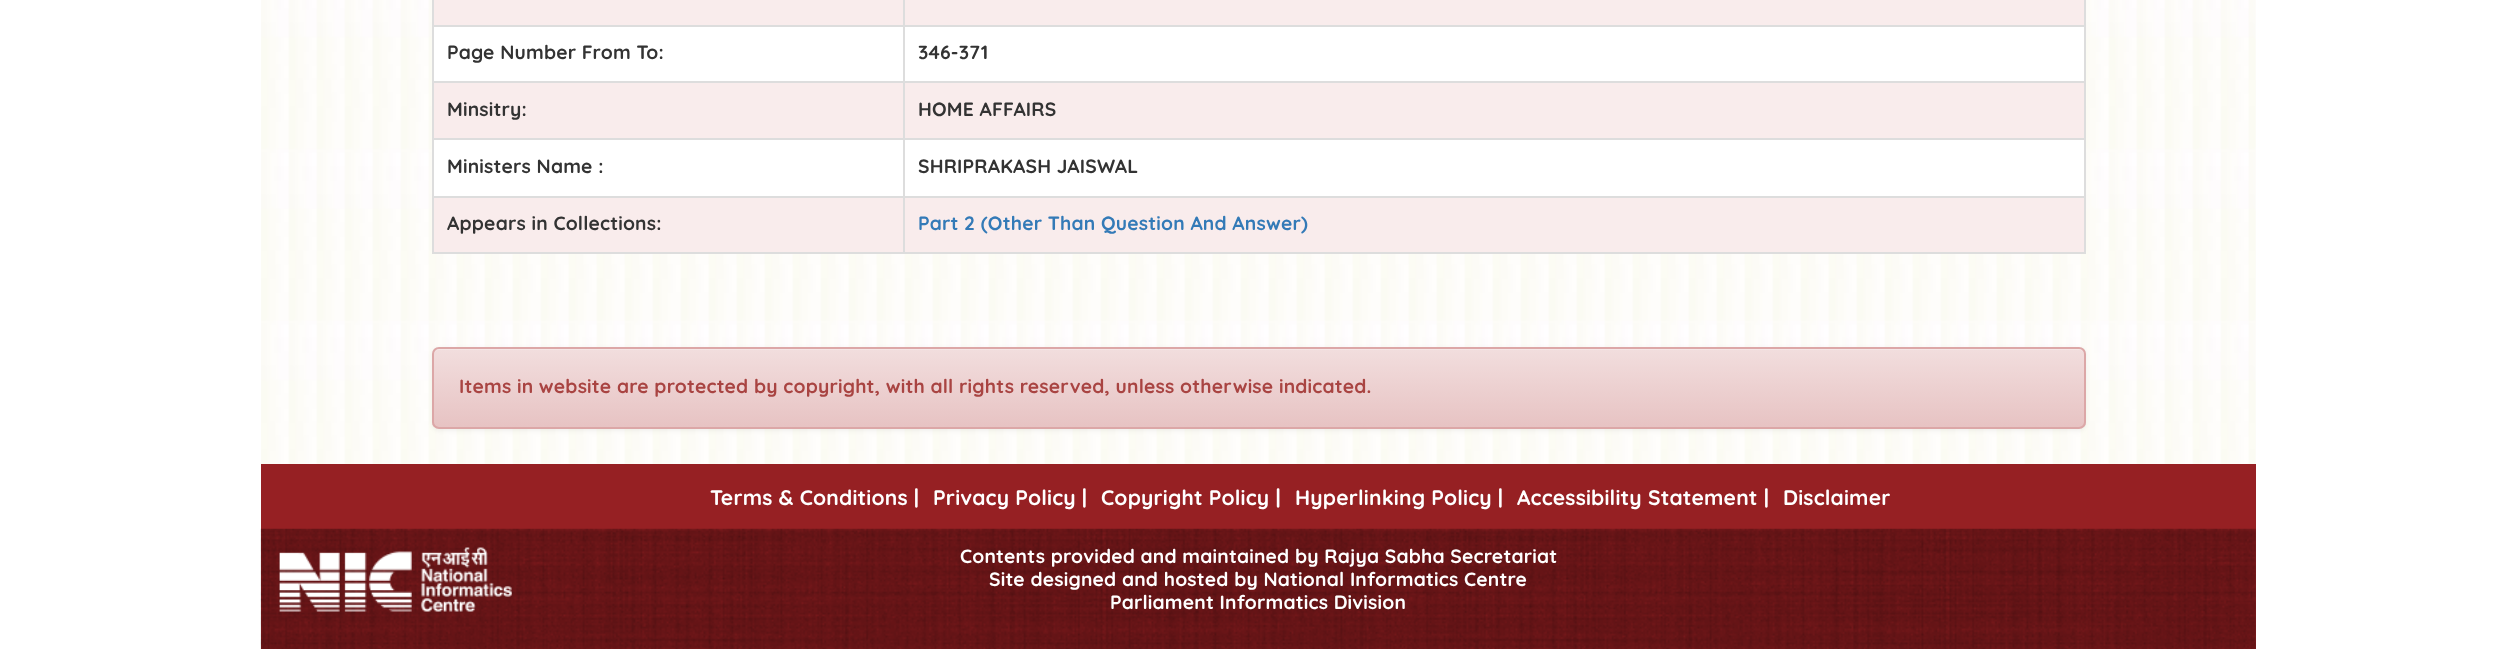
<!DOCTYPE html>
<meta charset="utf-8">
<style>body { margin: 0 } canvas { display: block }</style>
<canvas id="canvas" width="2516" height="649"></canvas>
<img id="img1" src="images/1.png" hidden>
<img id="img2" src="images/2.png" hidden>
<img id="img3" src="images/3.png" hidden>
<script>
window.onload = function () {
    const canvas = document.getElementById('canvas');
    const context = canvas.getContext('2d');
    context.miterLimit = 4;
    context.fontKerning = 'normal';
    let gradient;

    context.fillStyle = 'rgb(255, 255, 255)';
    context.fillRect(0, 0, 2516, 649);
    context.drawImage(document.getElementById('img1'), 261, 0, 1995, 464);
    context.fillStyle = 'rgb(221, 221, 221)';
    context.fillRect(2084, 0, 2, 254);
    context.fillRect(432, 252, 1654, 2);
    context.fillRect(432, 0, 2, 254);
    context.fillStyle = 'rgb(249, 236, 236)';
    context.fillRect(434, 0, 1650, 25);
    context.fillStyle = 'rgb(221, 221, 221)';
    context.fillRect(903, 25, 1183, 2);
    context.fillStyle = 'rgb(255, 255, 255)';
    context.fillRect(434, 27, 1650, 54);
    context.fillStyle = 'rgb(221, 221, 221)';
    context.fillRect(903, 81, 1183, 2);
    context.fillStyle = 'rgb(249, 236, 236)';
    context.fillRect(434, 83, 1650, 55);
    context.fillStyle = 'rgb(221, 221, 221)';
    context.fillRect(903, 138, 1183, 2);
    context.fillStyle = 'rgb(255, 255, 255)';
    context.fillRect(434, 140, 1650, 56);
    context.fillStyle = 'rgb(221, 221, 221)';
    context.fillRect(903, 196, 1183, 2);
    context.fillStyle = 'rgb(249, 236, 236)';
    context.fillRect(434, 198, 1650, 54);
    context.fillStyle = 'rgb(221, 221, 221)';
    context.fillRect(903, 196, 2, 58);
    context.fillRect(432, 196, 473, 2);
    context.fillRect(903, 138, 2, 60);
    context.fillRect(432, 138, 473, 2);
    context.fillRect(903, 81, 2, 59);
    context.fillRect(432, 81, 473, 2);
    context.fillRect(903, 25, 2, 57);
    context.fillRect(432, 25, 473, 2);
    context.fillRect(903, 0, 2, 26);
    context.fillStyle = 'rgba(0, 0, 0, 0.05)';
    context.filter = 'blur(2px)';
    context.beginPath();
    context.roundRect(432, 348, 1654, 83, 7);
    context.fill();
    context.filter = 'none';
    context.save();
    context.beginPath();
    context.roundRect(432, 347, 1654, 82, 7);
    context.clip();
    gradient = context.createLinearGradient(1259, 348, 1259, 427);
    gradient.addColorStop(0, 'rgb(242, 222, 222)');
    gradient.addColorStop(1, 'rgb(231, 195, 195)');
    context.fillStyle = gradient;
    context.fillRect(432, 348, 1654, 79);
    context.restore();
    context.fillStyle = 'rgb(245, 230, 230)';
    context.beginPath();
    context.moveTo(439, 350);
    context.lineTo(2079, 350);
    context.bezierCurveTo(2082, 350, 2084, 352, 2084, 355);
    context.bezierCurveTo(2084, 352, 2083, 348, 2079, 348);
    context.lineTo(439, 348);
    context.bezierCurveTo(435, 348, 434, 352, 434, 355);
    context.bezierCurveTo(434, 352, 436, 350, 439, 350);
    context.closePath();
    context.fill();
    context.beginPath();
    context.roundRect(433, 348, 1652, 80, 6);
    context.strokeStyle = 'rgb(220, 167, 167)';
    context.lineWidth = 2;
    context.stroke();
    context.fillStyle = 'rgb(150, 32, 35)';
    context.fillRect(261, 464, 1995, 65);
    context.fillStyle = 'rgb(147, 30, 33)';
    context.fillRect(261, 529, 1995, 120);
    context.drawImage(document.getElementById('img2'), 260, 528, 1996, 121);
    context.drawImage(document.getElementById('img3'), 279, 547, 233, 65);
    context.letterSpacing = '0.18px';
    context.font = 'bold 19.25px Quicksand';
    context.fillStyle = 'rgb(51, 51, 51)';
    context.fillText('Page Number From To:', 447, 59);
    context.fillText('346-371', 918, 59);
    context.fillText('Minsitry:', 447, 116);
    context.fillText('HOME AFFAIRS', 918, 116);
    context.fillText('Ministers Name :', 447, 173);
    context.fillText('SHRIPRAKASH JAISWAL', 918, 173);
    context.fillText('Appears in Collections:', 447, 230);
    context.fillStyle = 'rgb(51, 122, 183)';
    context.fillText('Part 2 (Other Than Question And Answer)', 918, 230);
    context.fillStyle = 'rgb(169, 68, 66)';
    context.fillText('Items in website are protected by copyright, with all rights reserved, unless otherwise indicated.', 459, 393);
    context.font = 'bold 21px Quicksand';
    context.fillStyle = 'rgb(255, 255, 255)';
    context.fillText('Terms & Conditions |', 710, 505);
    context.fillText('Privacy Policy |', 933, 505);
    context.fillText('Copyright Policy |', 1101, 505);
    context.fillText('Hyperlinking Policy |', 1295, 505);
    context.fillText('Accessibility Statement |', 1517, 505);
    context.fillText('Disclaimer', 1783, 505);
    context.font = 'bold 19.25px Quicksand';
    context.fillText('Contents provided and maintained by Rajya Sabha Secretariat', 960, 563);
    context.fillText('Site designed and hosted by National Informatics Centre', 989, 586);
    context.fillText('Parliament Informatics Division', 1110, 609);
};
</script>
